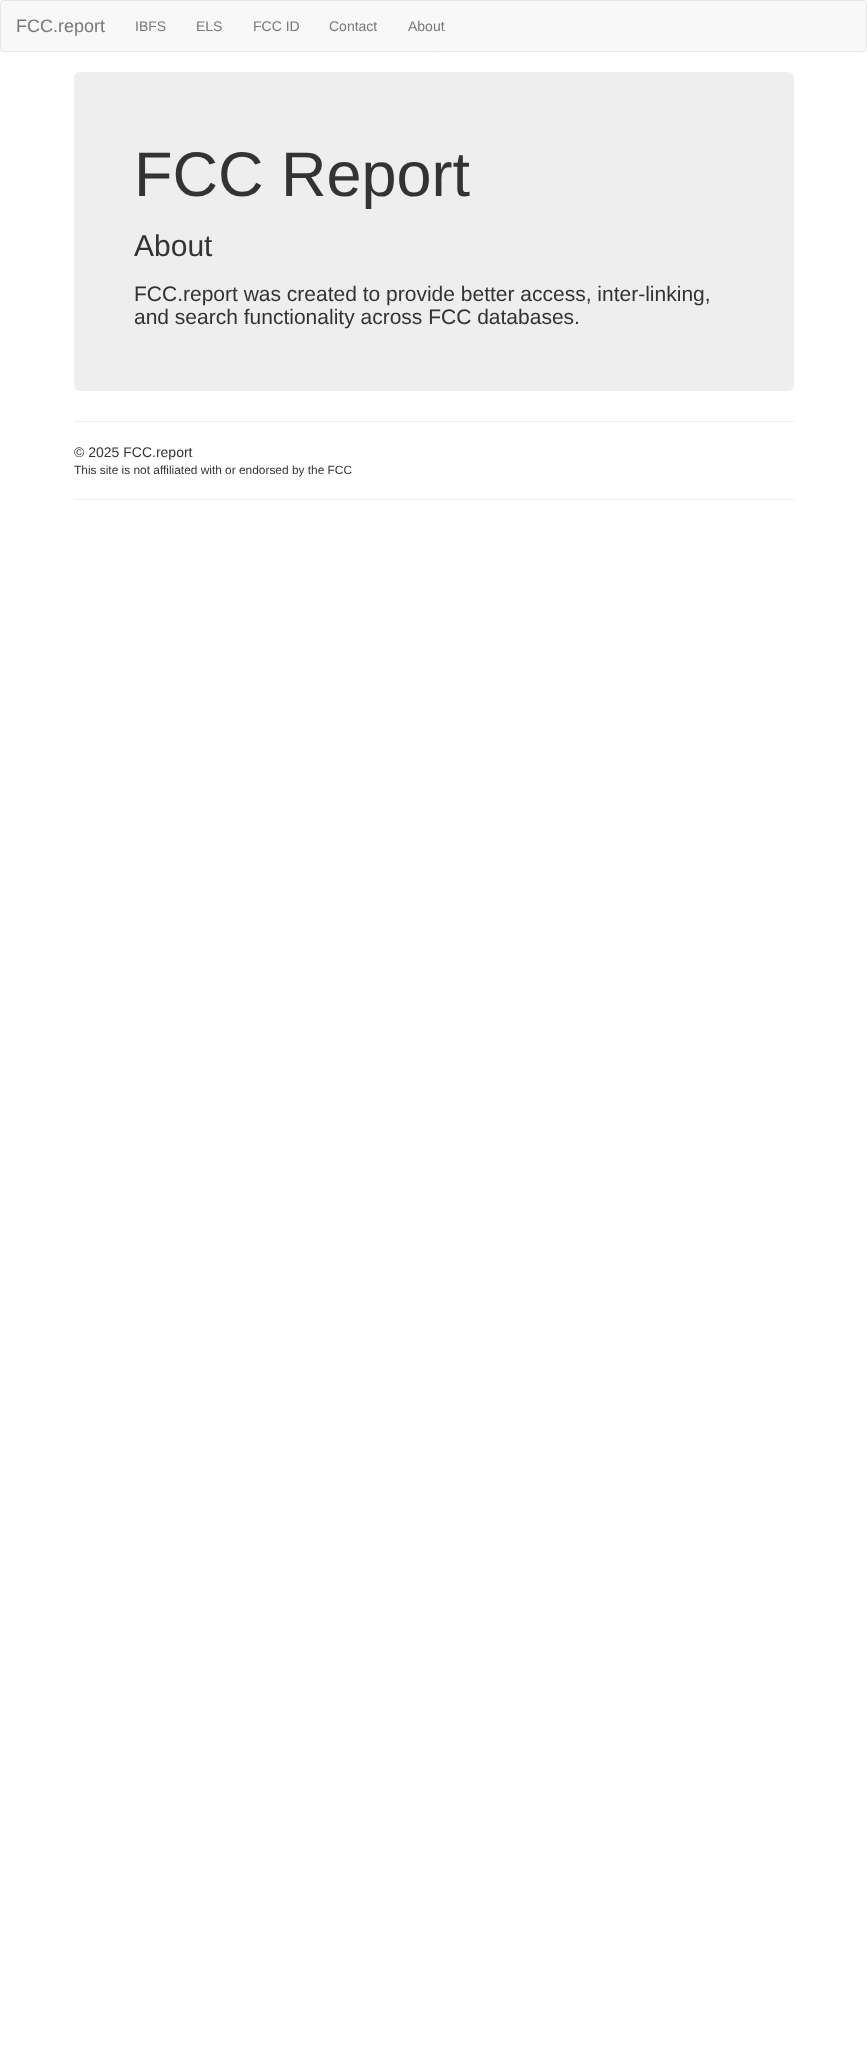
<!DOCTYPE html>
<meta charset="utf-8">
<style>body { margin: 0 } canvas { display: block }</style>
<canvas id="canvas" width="867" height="2052"></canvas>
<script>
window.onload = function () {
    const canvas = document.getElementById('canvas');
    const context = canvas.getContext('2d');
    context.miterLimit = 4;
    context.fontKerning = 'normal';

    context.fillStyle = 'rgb(255, 255, 255)';
    context.fillRect(0, 0, 867, 2052);
    context.fillStyle = 'rgb(248, 248, 248)';
    context.beginPath();
    context.roundRect(0.5, 0.5, 866, 51, 3.5);
    context.fill();
    context.strokeStyle = 'rgb(231, 231, 231)';
    context.stroke();
    context.fillStyle = 'rgb(238, 238, 238)';
    context.beginPath();
    context.roundRect(74, 72, 720, 319, 6);
    context.fill();
    context.fillRect(74, 421, 720, 1);
    context.fillRect(74, 499, 720, 1);
    context.font = '18px Liberation Sans';
    context.fillStyle = 'rgb(119, 119, 119)';
    context.fillText('FCC.report', 16, 32);
    context.font = '14px Liberation Sans';
    context.fillText('IBFS', 135, 31);
    context.fillText('ELS', 196, 31);
    context.fillText('FCC ID', 253, 31);
    context.fillText('Contact', 329, 31);
    context.fillText('About', 408, 31);
    context.font = '63px Liberation Sans';
    context.fillStyle = 'rgb(51, 51, 51)';
    context.fillText('FCC Report', 134, 196);
    context.font = '30px Liberation Sans';
    context.fillText('About', 134, 256);
    context.font = '21px Liberation Sans';
    context.fillText('FCC.report was created to provide better access, inter-linking,', 134, 301);
    context.fillText('and search functionality across FCC databases.', 134, 324);
    context.font = '14px Liberation Sans';
    context.fillText('© 2025 FCC.report', 74, 457);
    context.font = '11.9px Liberation Sans';
    context.fillText('This site is not affiliated with or endorsed by the FCC', 74, 474);
};
</script>
